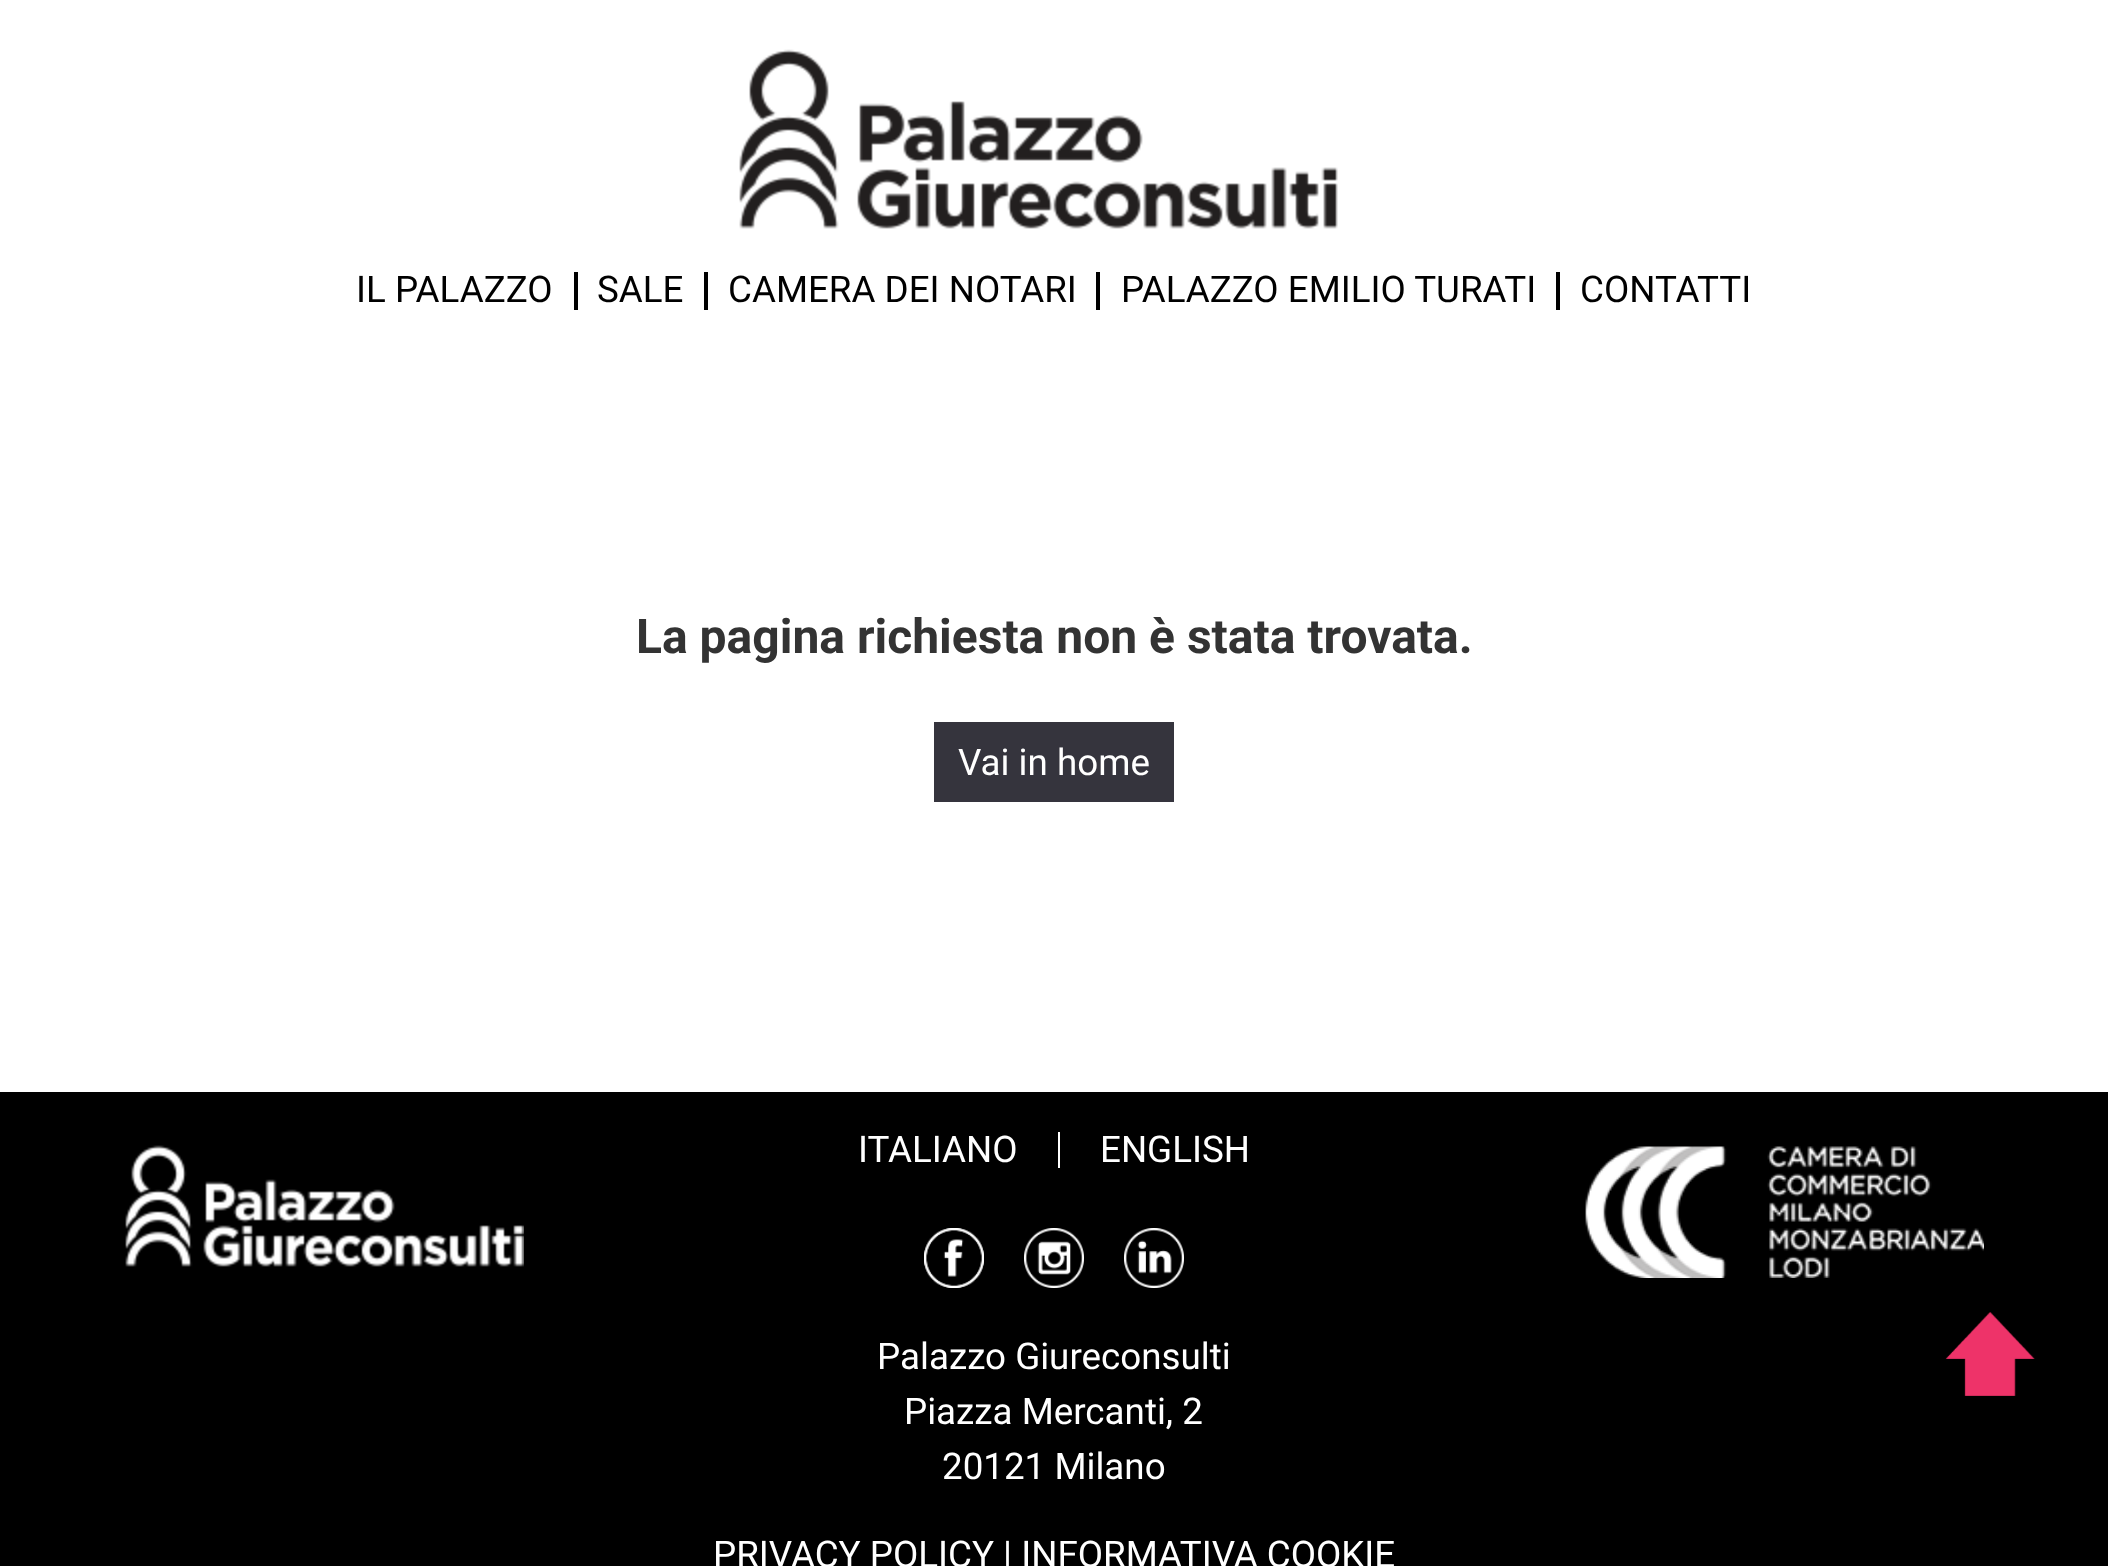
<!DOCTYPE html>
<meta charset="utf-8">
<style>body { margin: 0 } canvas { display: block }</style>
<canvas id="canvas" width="2108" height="1566"></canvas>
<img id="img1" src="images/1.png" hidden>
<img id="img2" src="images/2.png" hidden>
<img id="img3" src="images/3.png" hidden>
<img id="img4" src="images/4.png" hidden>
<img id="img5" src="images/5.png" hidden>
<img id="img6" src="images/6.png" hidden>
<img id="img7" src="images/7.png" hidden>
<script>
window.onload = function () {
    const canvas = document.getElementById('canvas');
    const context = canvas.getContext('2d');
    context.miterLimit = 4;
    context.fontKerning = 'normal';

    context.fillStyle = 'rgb(255, 255, 255)';
    context.fillRect(0, 0, 2108, 1566);
    context.drawImage(document.getElementById('img1'), 739, 49, 599, 180);
    context.fillStyle = 'rgb(0, 0, 0)';
    context.fillRect(574, 272, 4, 38);
    context.fillRect(704, 272, 4, 38);
    context.fillRect(1096, 272, 4, 38);
    context.fillRect(1556, 272, 4, 38);
    context.fillStyle = 'rgb(53, 52, 61)';
    context.fillRect(934, 722, 240, 80);
    context.fillStyle = 'rgb(0, 0, 0)';
    context.fillRect(0, 1092, 2108, 474);
    context.drawImage(document.getElementById('img2'), 125, 1145, 399, 122);
    context.fillStyle = 'rgb(255, 255, 255)';
    context.fillRect(1058, 1132, 2, 36);
    context.drawImage(document.getElementById('img3'), 924, 1228, 60, 60);
    context.drawImage(document.getElementById('img4'), 1024, 1228, 60, 60);
    context.drawImage(document.getElementById('img5'), 1124, 1228, 60, 60);
    context.drawImage(document.getElementById('img6'), 1585, 1146, 399, 132);
    context.drawImage(document.getElementById('img7'), 1945, 1312, 90, 84);
    context.font = '36.75px Roboto';
    context.fillStyle = 'rgb(0, 0, 0)';
    context.fillText('IL PALAZZO', 356, 302);
    context.fillText('SALE', 597, 302);
    context.fillText('CAMERA DEI NOTARI', 728, 302);
    context.fillText('PALAZZO EMILIO TURATI', 1121, 302);
    context.fillText('CONTATTI', 1580, 302);
    context.font = 'bold 48px Roboto';
    context.fillStyle = 'rgb(51, 51, 51)';
    context.fillText('La pagina richiesta non è stata trovata.', 636, 653);
    context.font = '36.75px Roboto';
    context.fillStyle = 'rgb(255, 255, 255)';
    context.fillText('Vai in home', 958, 775);
    context.fillText('ITALIANO', 858, 1162);
    context.fillText('ENGLISH', 1100, 1162);
    context.fillText('Palazzo Giureconsulti', 877, 1369);
    context.fillText('Piazza Mercanti, 2', 904, 1424);
    context.fillText('20121 Milano', 942, 1479);
    context.fillText('PRIVACY POLICY | INFORMATIVA COOKIE', 713, 1567);
};
</script>
